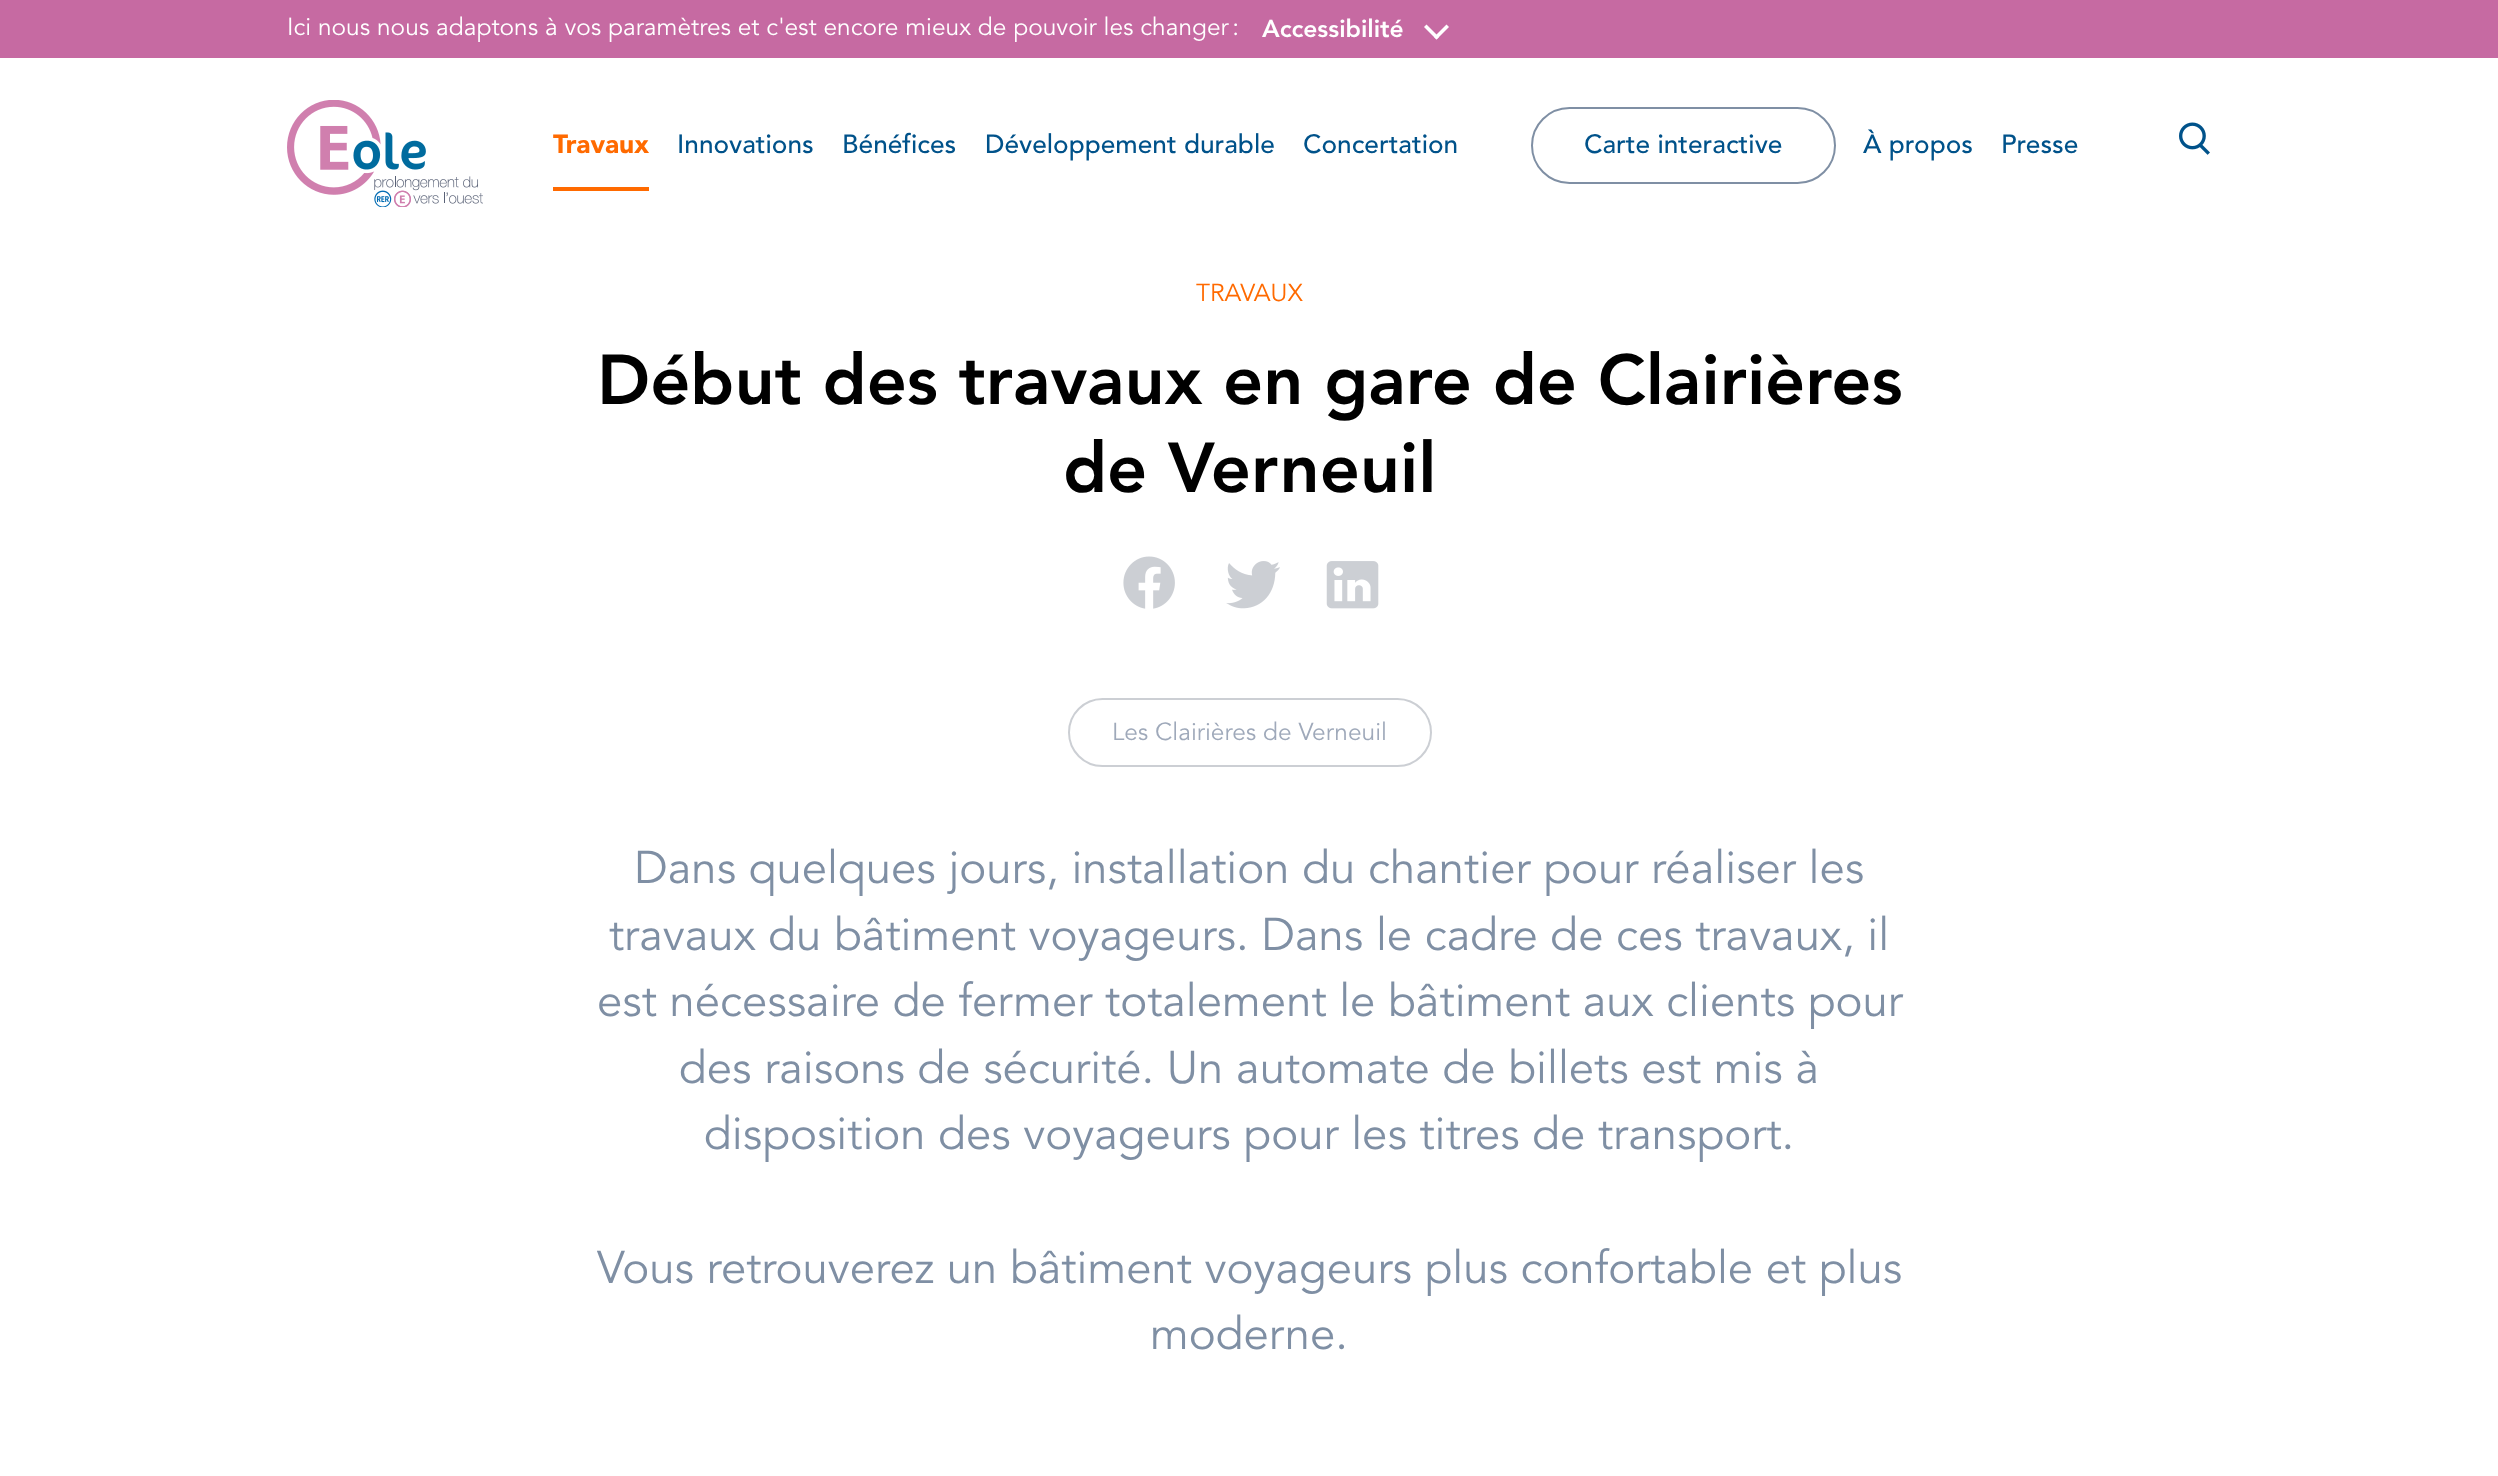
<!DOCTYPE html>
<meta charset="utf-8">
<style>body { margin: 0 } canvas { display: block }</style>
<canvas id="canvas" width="2498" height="1476"></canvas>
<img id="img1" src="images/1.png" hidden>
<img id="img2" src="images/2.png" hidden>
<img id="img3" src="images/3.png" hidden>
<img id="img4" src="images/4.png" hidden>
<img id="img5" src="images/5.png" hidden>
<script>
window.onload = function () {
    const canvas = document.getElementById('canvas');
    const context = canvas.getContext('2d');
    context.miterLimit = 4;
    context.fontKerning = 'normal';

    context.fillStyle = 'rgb(255, 255, 255)';
    context.fillRect(0, 0, 2498, 1476);
    context.fillStyle = 'rgb(198, 106, 162)';
    context.fillRect(0, 0, 2498, 58);
    context.fillStyle = 'rgb(255, 255, 255)';
    context.beginPath();
    context.moveTo(1446.5, 24.5);
    context.lineTo(1449, 27);
    context.lineTo(1436.5, 39.5);
    context.lineTo(1434, 37);
    context.closePath();
    context.fill();
    context.beginPath();
    context.moveTo(1426.5, 24.5);
    context.lineTo(1439, 37);
    context.lineTo(1436.5, 39.5);
    context.lineTo(1424, 27);
    context.closePath();
    context.fill();
    context.drawImage(document.getElementById('img1'), 287, 100, 196, 107);
    context.fillStyle = 'rgb(255, 106, 0)';
    context.fillRect(553, 187, 96, 4);
    context.beginPath();
    context.roundRect(1532, 108, 303, 75, 37.5);
    context.strokeStyle = 'rgb(127, 143, 164)';
    context.lineWidth = 2;
    context.stroke();
    context.drawImage(document.getElementById('img2'), 2179, 122, 31, 33);
    context.drawImage(document.getElementById('img3'), 1123, 556, 52, 53);
    context.drawImage(document.getElementById('img4'), 1226, 561, 54, 48);
    context.drawImage(document.getElementById('img5'), 1326, 561, 53, 48);
    context.beginPath();
    context.roundRect(1069, 699, 362, 67, 33.5);
    context.strokeStyle = 'rgb(204, 207, 212)';
    context.stroke();
    context.font = '24.5px Avenir';
    context.fillStyle = 'rgb(255, 255, 255)';
    context.fillText('Ici nous nous adaptons à vos paramètres et c\'est encore mieux de pouvoir les changer :', 287, 35);
    context.font = '900 24.5px Avenir';
    context.fillText('Accessibilité', 1262, 37);
    context.font = '900 26.25px "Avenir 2"';
    context.fillStyle = 'rgb(255, 106, 0)';
    context.fillText('Travaux', 553, 153);
    context.font = '500 26.25px Avenir';
    context.fillStyle = 'rgb(0, 82, 138)';
    context.fillText('Innovations', 677, 153);
    context.fillText('Bénéfices', 842, 153);
    context.fillText('Développement durable', 985, 153);
    context.fillText('Concertation', 1303, 153);
    context.fillText('Carte interactive', 1584, 153);
    context.fillText('À propos', 1863, 153);
    context.fillText('Presse', 2001, 153);
    context.font = '24.5px Avenir';
    context.fillStyle = 'rgb(255, 106, 0)';
    context.fillText('TRAVAUX', 1196, 301);
    context.font = '900 70px Avenir';
    context.fillStyle = 'rgb(0, 0, 0)';
    context.fillText('Début des travaux en gare de Clairières', 597, 404);
    context.fillText('de Verneuil', 1063, 492);
    context.font = '24.5px Avenir';
    context.fillStyle = 'rgb(159, 169, 186)';
    context.fillText('Les Clairières de Verneuil', 1112, 740);
    context.font = '45.5px Avenir';
    context.fillStyle = 'rgb(127, 143, 164)';
    context.fillText('Dans quelques jours, installation du chantier pour réaliser les', 634, 883);
    context.fillText('travaux du bâtiment voyageurs. Dans le cadre de ces travaux, il', 609, 950);
    context.fillText('est nécessaire de fermer totalement le bâtiment aux clients pour', 597, 1016);
    context.fillText('des raisons de sécurité. Un automate de billets est mis à', 679, 1083);
    context.fillText('disposition des voyageurs pour les titres de transport.', 704, 1149);
    context.fillText('Vous retrouverez un bâtiment voyageurs plus confortable et plus', 597, 1283);
    context.fillText('moderne.', 1150, 1349);
};
</script>
